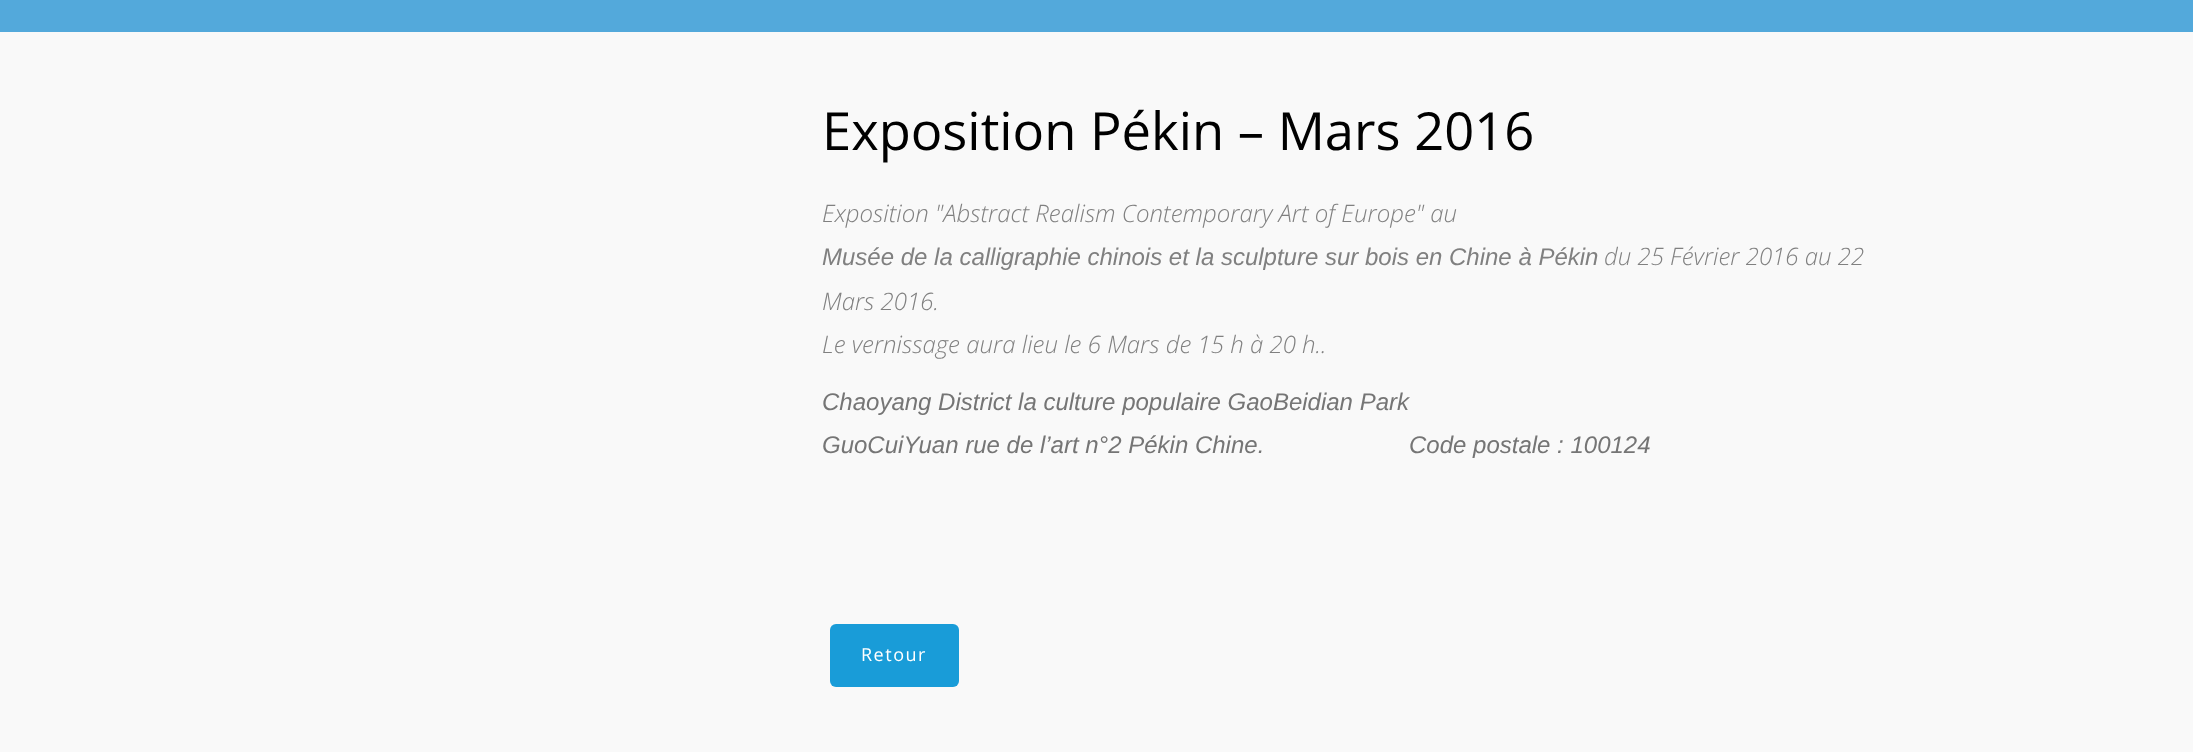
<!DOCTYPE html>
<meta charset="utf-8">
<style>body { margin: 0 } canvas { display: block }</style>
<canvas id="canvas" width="2193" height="752"></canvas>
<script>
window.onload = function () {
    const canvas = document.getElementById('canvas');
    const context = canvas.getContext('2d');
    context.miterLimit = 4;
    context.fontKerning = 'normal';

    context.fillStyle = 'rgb(249, 249, 249)';
    context.fillRect(0, 0, 2193, 752);
    context.fillStyle = 'rgb(83, 169, 219)';
    context.fillRect(0, 0, 2193, 32);
    context.fillStyle = 'rgb(25, 156, 216)';
    context.beginPath();
    context.roundRect(830, 624, 129, 63, 6);
    context.fill();
    context.font = '52.5px Open Sans';
    context.fillStyle = 'rgb(0, 0, 0)';
    context.fillText('Exposition Pékin – Mars 2016', 822, 150);
    context.font = 'italic 300 24px Open Sans';
    context.fillStyle = 'rgb(128, 128, 128)';
    context.fillText('Exposition "Abstract Realism Contemporary Art of Europe" au', 822, 222);
    context.font = 'italic 24px Liberation Sans';
    context.fillText('Musée de la calligraphie chinois et la sculpture sur bois en Chine à Pékin', 822, 265);
    context.font = 'italic 300 24px Open Sans';
    context.fillText('du 25 Février 2016 au 22', 1604, 265);
    context.fillText('Mars 2016.', 822, 310);
    context.fillText('Le vernissage aura lieu le 6 Mars de 15 h à 20 h..', 822, 353);
    context.font = 'italic 24px Liberation Sans';
    context.fillStyle = 'rgb(117, 117, 117)';
    context.fillText('Chaoyang District la culture populaire GaoBeidian Park', 822, 410);
    context.fillText('GuoCuiYuan rue de l’art n°2 Pékin Chine.', 822, 453);
    context.fillText('Code postale : 100124', 1409, 453);
    context.letterSpacing = '1.5px';
    context.font = '18px Open Sans';
    context.fillStyle = 'rgb(255, 255, 255)';
    context.fillText('Retour', 861, 661);
};
</script>
